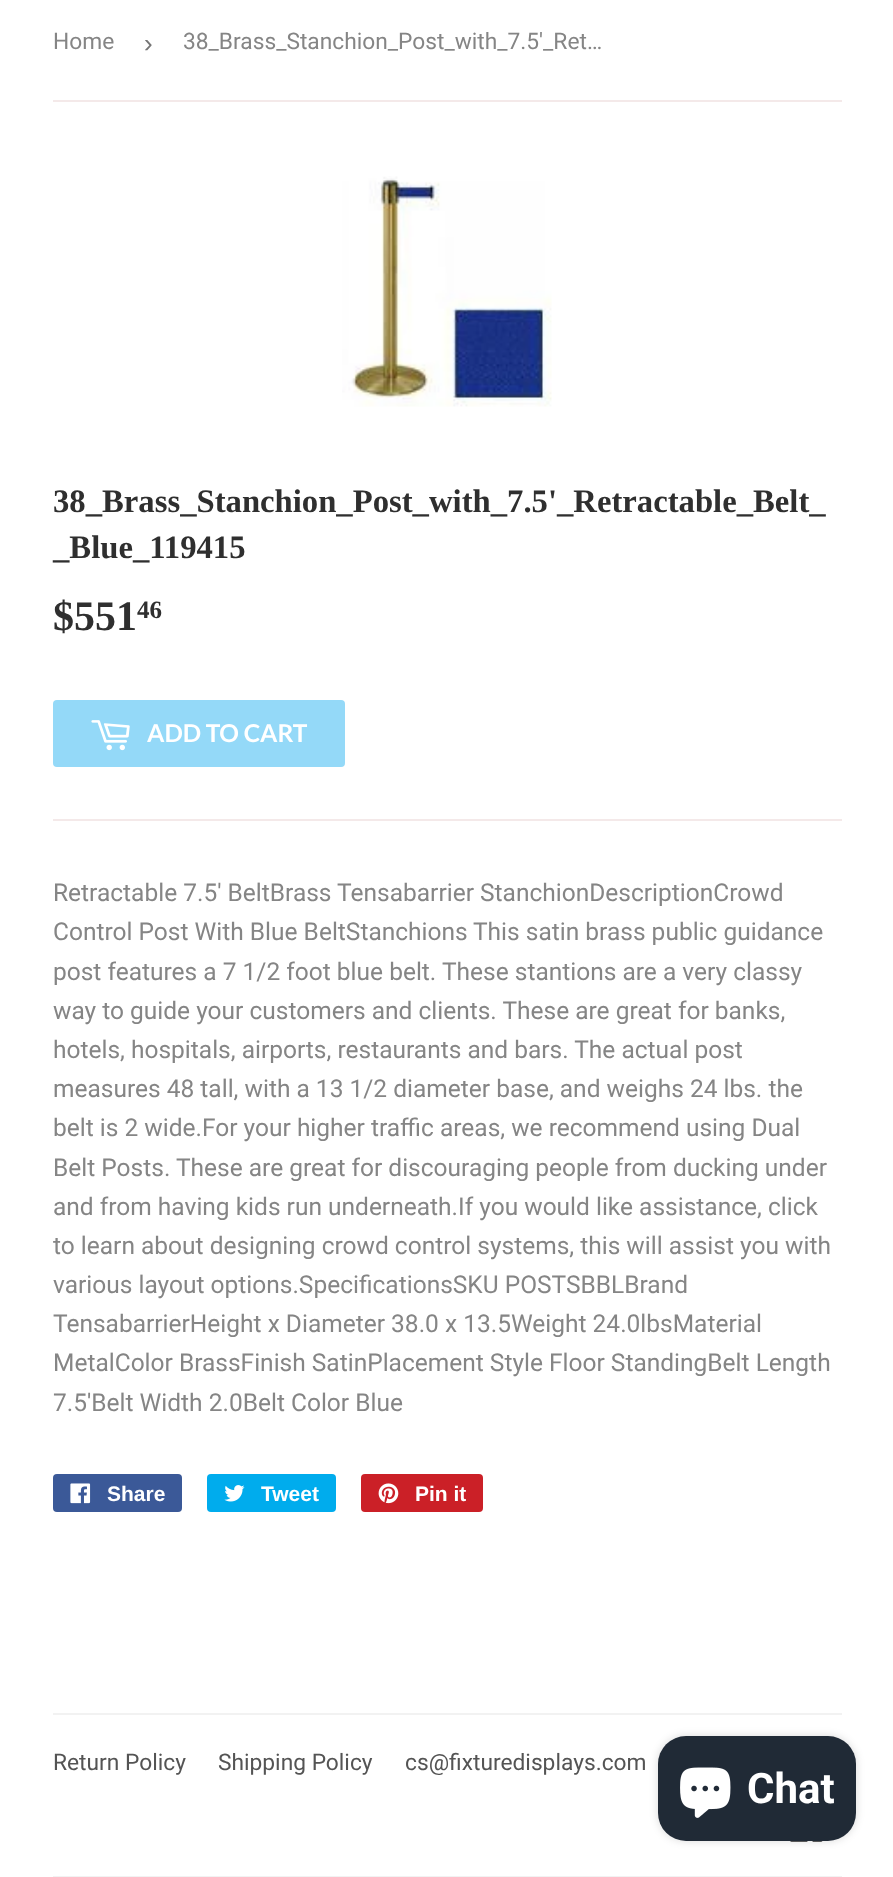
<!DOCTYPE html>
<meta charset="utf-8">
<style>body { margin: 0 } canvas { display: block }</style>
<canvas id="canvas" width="893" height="1877"></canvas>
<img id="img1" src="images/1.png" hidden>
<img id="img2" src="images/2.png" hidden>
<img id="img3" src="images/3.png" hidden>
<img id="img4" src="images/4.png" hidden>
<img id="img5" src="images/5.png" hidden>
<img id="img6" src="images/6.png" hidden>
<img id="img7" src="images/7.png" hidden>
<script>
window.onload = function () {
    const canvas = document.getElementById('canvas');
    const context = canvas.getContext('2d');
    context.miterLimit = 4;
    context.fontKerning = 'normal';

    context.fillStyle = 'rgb(255, 255, 255)';
    context.fillRect(0, 0, 893, 1877);
    context.fillStyle = 'rgb(244, 233, 233)';
    context.fillRect(53, 100, 789, 2);
    context.drawImage(document.getElementById('img1'), 342, 176, 210, 231);
    context.fillStyle = 'rgb(148, 217, 248)';
    context.beginPath();
    context.roundRect(53, 700, 292, 67, 4);
    context.fill();
    context.drawImage(document.getElementById('img2'), 91, 720, 39, 31);
    context.fillStyle = 'rgb(244, 233, 233)';
    context.fillRect(53, 819, 789, 2);
    context.fillStyle = 'rgb(59, 89, 152)';
    context.beginPath();
    context.roundRect(53, 1474, 129, 38, 4);
    context.fill();
    context.drawImage(document.getElementById('img3'), 70, 1483, 21, 21);
    context.fillStyle = 'rgb(0, 172, 237)';
    context.beginPath();
    context.roundRect(207, 1474, 129, 38, 4);
    context.fill();
    context.drawImage(document.getElementById('img4'), 224, 1485, 21, 17);
    context.fillStyle = 'rgb(203, 32, 39)';
    context.beginPath();
    context.roundRect(361, 1474, 122, 38, 4);
    context.fill();
    context.drawImage(document.getElementById('img5'), 378, 1483, 21, 21);
    context.fillStyle = 'rgb(242, 242, 242)';
    context.fillRect(53, 1713, 789, 2);
    context.drawImage(document.getElementById('img6'), 790, 1841, 33, 1);
    context.fillRect(53, 1876, 789, 1);
    context.fillStyle = 'rgba(0, 0, 0, 0.15)';
    context.filter = 'blur(4.5px)';
    context.beginPath();
    context.roundRect(658, 1736, 198, 105, 28);
    context.fill();
    context.filter = 'none';
    context.fillStyle = 'rgb(32, 42, 54)';
    context.beginPath();
    context.roundRect(658, 1736, 198, 105, 28);
    context.fill();
    context.drawImage(document.getElementById('img7'), 680, 1767, 51, 51);
    context.font = '22.75px Roboto';
    context.fillStyle = 'rgb(133, 133, 133)';
    context.fillText('Home', 53, 49);
    context.font = '26px Liberation Sans';
    context.fillStyle = 'rgb(118, 118, 118)';
    context.fillText('›', 144, 52);
    context.font = '22.75px Roboto';
    context.fillStyle = 'rgb(133, 133, 133)';
    context.fillText('38_Brass_Stanchion_Post_with_7.5\'_Ret…', 183, 49);
    context.font = 'bold 32.7px Liberation Serif';
    context.fillStyle = 'rgb(47, 47, 47)';
    context.fillText('38_Brass_Stanchion_Post_with_7.5\'_Retractable_Belt_', 53, 512);
    context.fillText('_Blue_119415', 53, 558);
    context.font = 'bold 42px Liberation Serif';
    context.fillText('$551', 53, 630);
    context.font = 'bold 25px Liberation Serif';
    context.fillText('46', 137, 618);
    context.font = 'bold 24.5px Lato';
    context.fillStyle = 'rgb(255, 255, 255)';
    context.fillText('ADD TO CART', 147, 742);
    context.font = '24.5px Roboto';
    context.fillStyle = 'rgb(133, 133, 133)';
    context.fillText('Retractable 7.5\' BeltBrass Tensabarrier StanchionDescriptionCrowd', 53, 901);
    context.fillText('Control Post With Blue BeltStanchions', 53, 940);
    context.fillText('This satin brass public guidance', 473, 940);
    context.fillText('post features a 7 1/2 foot blue belt. These stantions are a very classy', 53, 980);
    context.fillText('way to guide your customers and clients. These are great for banks,', 53, 1019);
    context.fillText('hotels, hospitals, airports, restaurants and bars. The actual post', 53, 1058);
    context.fillText('measures 48 tall, with a 13 1/2 diameter base, and weighs 24 lbs. the', 53, 1097);
    context.fillText('belt is 2 wide.For your higher traffic areas, we recommend using Dual', 53, 1136);
    context.fillText('Belt Posts. These are great for discouraging people from ducking under', 53, 1176);
    context.fillText('and from having kids run underneath.If you would like assistance, click', 53, 1215);
    context.fillText('to learn about designing crowd control systems, this will assist you with', 53, 1254);
    context.fillText('various layout options.SpecificationsSKU POSTSBBLBrand', 53, 1293);
    context.fillText('TensabarrierHeight x Diameter 38.0 x 13.5Weight 24.0lbsMaterial', 53, 1332);
    context.fillText('MetalColor BrassFinish SatinPlacement Style Floor StandingBelt Length', 53, 1371);
    context.fillText('7.5\'Belt Width 2.0Belt Color Blue', 53, 1411);
    context.font = 'bold 21px Liberation Sans';
    context.fillStyle = 'rgb(255, 255, 255)';
    context.fillText('Share', 107, 1501);
    context.fillText('Tweet', 261, 1501);
    context.fillText('Pin it', 415, 1501);
    context.font = '22.75px Roboto';
    context.fillStyle = 'rgb(84, 84, 84)';
    context.fillText('Return Policy', 53, 1770);
    context.fillText('Shipping Policy', 218, 1770);
    context.fillText('cs@fixturedisplays.com', 405, 1770);
    context.font = 'bold 42px Roboto';
    context.fillStyle = 'rgb(255, 255, 255)';
    context.fillText('Chat', 747, 1803);
};
</script>
